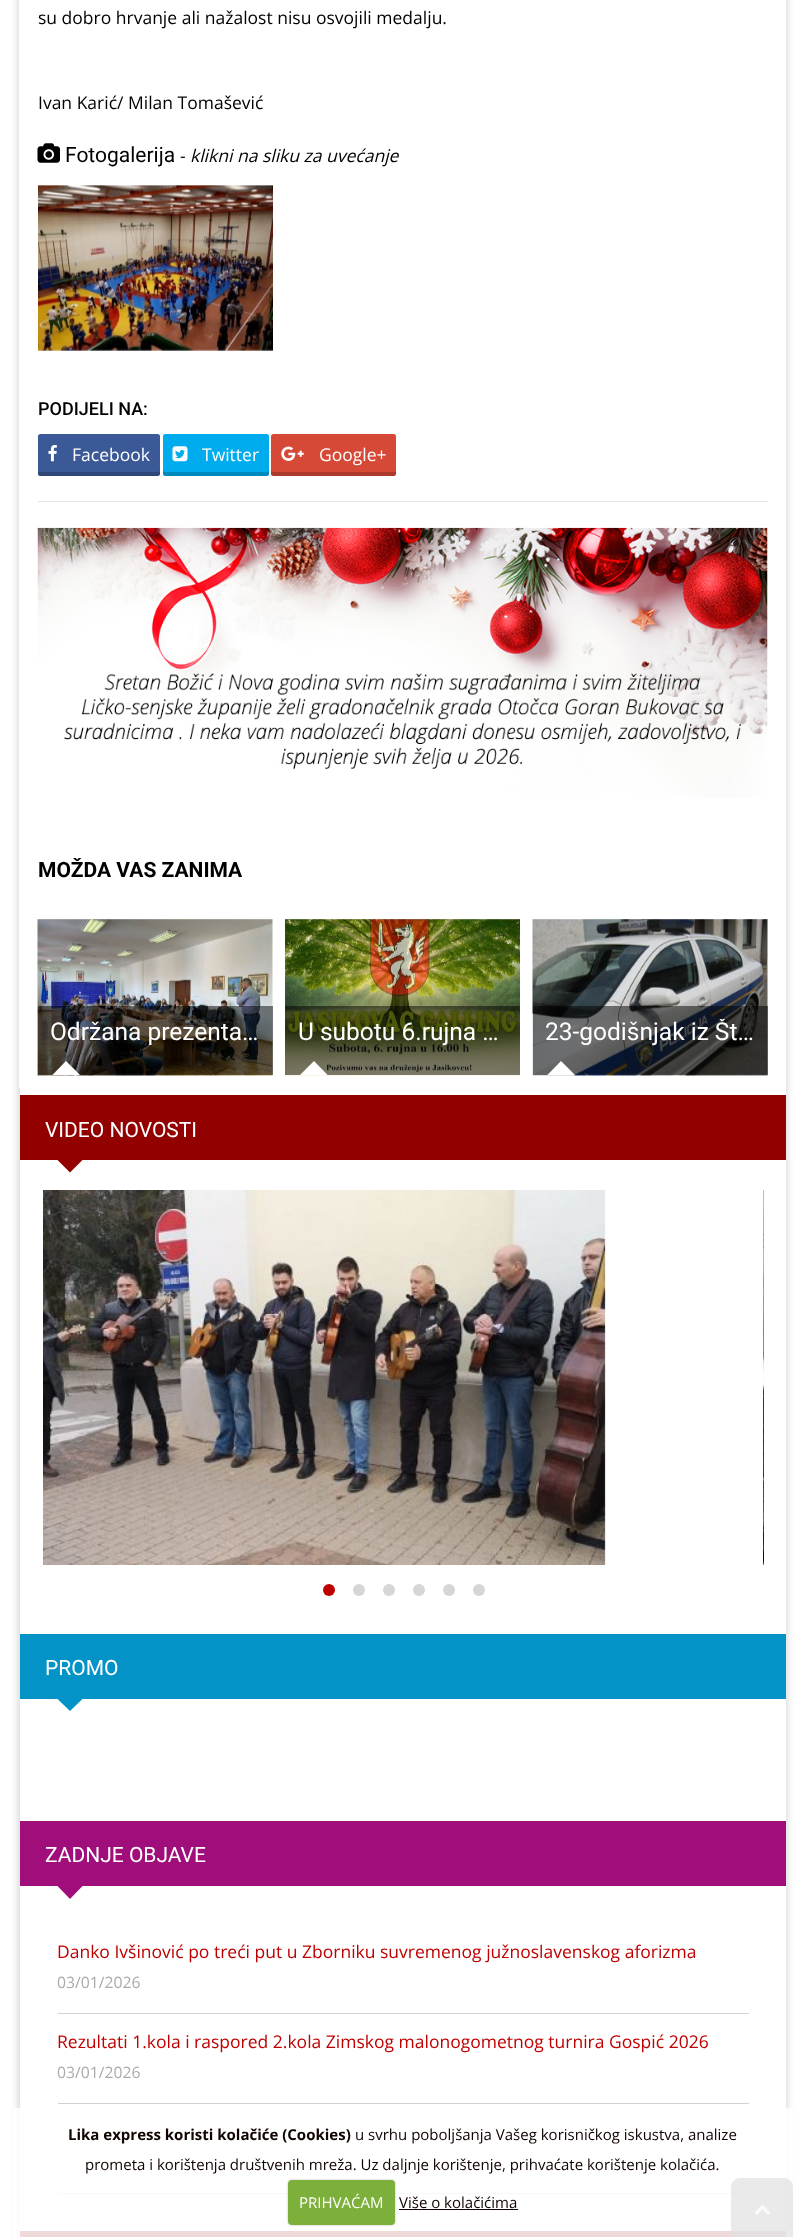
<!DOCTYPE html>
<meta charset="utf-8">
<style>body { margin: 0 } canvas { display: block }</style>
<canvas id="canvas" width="805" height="2237"></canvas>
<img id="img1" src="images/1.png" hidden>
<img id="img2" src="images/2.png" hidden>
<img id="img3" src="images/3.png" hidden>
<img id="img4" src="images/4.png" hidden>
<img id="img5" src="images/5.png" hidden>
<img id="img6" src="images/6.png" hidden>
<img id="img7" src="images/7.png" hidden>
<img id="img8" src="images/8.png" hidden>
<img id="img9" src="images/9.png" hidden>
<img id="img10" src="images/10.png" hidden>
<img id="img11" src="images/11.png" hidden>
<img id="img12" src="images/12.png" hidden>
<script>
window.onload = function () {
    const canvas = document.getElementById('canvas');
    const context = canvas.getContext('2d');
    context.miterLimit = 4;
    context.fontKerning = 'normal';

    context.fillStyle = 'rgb(255, 255, 255)';
    context.fillRect(0, 0, 805, 2237);
    context.save();
    context.beginPath();
    context.moveTo(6, 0);
    context.lineTo(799, 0);
    context.lineTo(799, 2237);
    context.lineTo(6, 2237);
    context.closePath();
    context.moveTo(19, -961);
    context.lineTo(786, -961);
    context.lineTo(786, 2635);
    context.lineTo(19, 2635);
    context.closePath();
    context.clip('evenodd');
    context.fillStyle = 'rgba(0, 0, 0, 0.2)';
    context.filter = 'blur(4px)';
    context.beginPath();
    context.rect(19, -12, 767, 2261);
    context.fill();
    context.filter = 'none';
    context.restore();
    context.drawImage(document.getElementById('img1'), 37, 143, 23, 20);
    context.drawImage(document.getElementById('img2'), 38, 185, 235, 166);
    context.fillStyle = 'rgb(228, 228, 228)';
    context.fillRect(38, 501, 730, 1);
    context.fillStyle = 'rgb(59, 89, 151)';
    context.beginPath();
    context.roundRect(38, 434, 122, 42, 2.5);
    context.fill();
    context.fillStyle = 'rgba(0, 0, 0, 0.2)';
    context.beginPath();
    context.moveTo(38, 470);
    context.lineTo(38, 474);
    context.bezierCurveTo(38, 475, 39, 476, 40, 476);
    context.lineTo(158, 476);
    context.bezierCurveTo(159, 476, 160, 475, 160, 474);
    context.lineTo(160, 470);
    context.bezierCurveTo(160, 471, 159, 472, 158, 472);
    context.lineTo(40, 472);
    context.bezierCurveTo(39, 472, 38, 471, 38, 470);
    context.closePath();
    context.fill();
    context.drawImage(document.getElementById('img3'), 48, 445, 9, 17);
    context.fillStyle = 'rgb(0, 172, 237)';
    context.beginPath();
    context.roundRect(163, 434, 106, 42, 2.5);
    context.fill();
    context.fillStyle = 'rgba(0, 0, 0, 0.2)';
    context.beginPath();
    context.moveTo(163, 471);
    context.lineTo(163, 474);
    context.bezierCurveTo(163, 475, 164, 476, 166, 476);
    context.lineTo(266, 476);
    context.bezierCurveTo(268, 476, 269, 475, 269, 474);
    context.lineTo(269, 470);
    context.bezierCurveTo(269, 471, 268, 472, 266, 472);
    context.lineTo(165, 472);
    context.closePath();
    context.fill();
    context.drawImage(document.getElementById('img4'), 172, 446, 16, 16);
    context.fillStyle = 'rgb(214, 73, 55)';
    context.beginPath();
    context.roundRect(271, 434, 125, 42, 2.5);
    context.fill();
    context.fillStyle = 'rgba(0, 0, 0, 0.2)';
    context.beginPath();
    context.moveTo(271, 470);
    context.lineTo(271, 474);
    context.bezierCurveTo(271, 475, 272, 476, 274, 476);
    context.lineTo(394, 476);
    context.bezierCurveTo(395, 476, 396, 475, 396, 474);
    context.lineTo(396, 470);
    context.lineTo(396, 471);
    context.lineTo(394, 472);
    context.lineTo(274, 472);
    context.bezierCurveTo(273, 472, 271, 471, 271, 470);
    context.closePath();
    context.fill();
    context.drawImage(document.getElementById('img5'), 281, 446, 23, 15);
    context.drawImage(document.getElementById('img6'), 37, 527, 731, 271);
    context.drawImage(document.getElementById('img7'), 37, 919, 236, 157);
    context.fillStyle = 'rgba(0, 0, 0, 0.5)';
    context.fillRect(38, 1006, 235, 69);
    context.save();
    context.beginPath();
    context.rect(38, 1006, 235, 69);
    context.clip();
    context.fillStyle = 'rgb(255, 255, 255)';
    context.beginPath();
    context.moveTo(85, 1080);
    context.lineTo(47.5, 1080);
    context.lineTo(66, 1061);
    context.closePath();
    context.fill();
    context.restore();
    context.drawImage(document.getElementById('img8'), 285, 919, 235, 157);
    context.fillRect(285, 1006, 235, 69);
    context.save();
    context.beginPath();
    context.rect(285, 1006, 235, 69);
    context.clip();
    context.fillStyle = 'rgb(255, 255, 255)';
    context.beginPath();
    context.moveTo(332.5, 1080);
    context.lineTo(295, 1080);
    context.lineTo(314, 1061);
    context.closePath();
    context.fill();
    context.restore();
    context.drawImage(document.getElementById('img9'), 532, 919, 236, 157);
    context.fillRect(533, 1006, 235, 69);
    context.save();
    context.beginPath();
    context.rect(533, 1006, 235, 69);
    context.clip();
    context.fillStyle = 'rgb(255, 255, 255)';
    context.beginPath();
    context.moveTo(580, 1080);
    context.lineTo(542.5, 1080);
    context.lineTo(561, 1061);
    context.closePath();
    context.fill();
    context.restore();
    context.fillStyle = 'rgb(228, 228, 228)';
    context.fillRect(19, 1088, 1, 1149);
    context.fillStyle = 'rgb(146, 0, 0)';
    context.fillRect(20, 1095, 766, 65);
    context.beginPath();
    context.moveTo(57.5, 1160);
    context.lineTo(82.5, 1160);
    context.lineTo(70, 1172.5);
    context.closePath();
    context.fill();
    context.drawImage(document.getElementById('img10'), 43, 1190, 563, 375);
    context.drawImage(document.getElementById('img11'), 763, 1190, 1, 375);
    context.fillStyle = 'rgb(191, 0, 0)';
    context.beginPath();
    context.arc(329, 1590, 6, 0, 2 * Math.PI);
    context.fill();
    context.fillStyle = 'rgb(214, 214, 214)';
    context.beginPath();
    context.arc(359, 1590, 6, 0, 2 * Math.PI);
    context.fill();
    context.beginPath();
    context.arc(389, 1590, 6, 0, 2 * Math.PI);
    context.fill();
    context.beginPath();
    context.arc(419, 1590, 6, 0, 2 * Math.PI);
    context.fill();
    context.beginPath();
    context.arc(449, 1590, 6, 0, 2 * Math.PI);
    context.fill();
    context.beginPath();
    context.arc(479, 1590, 6, 0, 2 * Math.PI);
    context.fill();
    context.fillStyle = 'rgb(3, 147, 198)';
    context.fillRect(20, 1634, 766, 65);
    context.beginPath();
    context.moveTo(57.5, 1699);
    context.lineTo(82.5, 1699);
    context.lineTo(70, 1711);
    context.closePath();
    context.fill();
    context.fillStyle = 'rgb(159, 14, 123)';
    context.fillRect(20, 1821, 766, 65);
    context.beginPath();
    context.moveTo(57.5, 1886);
    context.lineTo(82.5, 1886);
    context.lineTo(70, 1899);
    context.closePath();
    context.fill();
    context.fillStyle = 'rgb(210, 210, 210)';
    context.fillRect(58, 2013, 691, 1);
    context.fillRect(58, 2103, 691, 1);
    context.fillRect(58, 2193, 691, 1);
    context.fillStyle = 'rgb(146, 0, 0)';
    context.fillRect(20, 2231, 766, 6);
    context.fillStyle = 'rgba(64, 64, 64, 0.75)';
    context.beginPath();
    context.moveTo(740, 2178);
    context.lineTo(784, 2178);
    context.bezierCurveTo(789, 2178, 793, 2182, 793, 2187);
    context.lineTo(793, 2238);
    context.lineTo(731, 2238);
    context.lineTo(731, 2187);
    context.bezierCurveTo(731, 2182, 735, 2178, 740, 2178);
    context.closePath();
    context.fill();
    context.drawImage(document.getElementById('img12'), 754, 2204, 17, 11);
    context.fillStyle = 'rgba(255, 255, 255, 0.85)';
    context.fillRect(13, 2108, 780, 129);
    context.fillStyle = 'rgba(0, 0, 0, 0.25)';
    context.filter = 'blur(1px)';
    context.beginPath();
    context.roundRect(288, 2180, 107, 45, 4);
    context.fill();
    context.filter = 'none';
    context.fillStyle = 'rgb(125, 175, 59)';
    context.beginPath();
    context.roundRect(288, 2180, 107, 45, 4);
    context.fill();
    context.fillStyle = 'rgb(17, 3, 0)';
    context.fillRect(399, 2209, 119, 1);
    context.font = '17.5px Open Sans';
    context.fillStyle = 'rgb(0, 0, 0)';
    context.fillText('su dobro hrvanje ali nažalost nisu osvojili medalju.', 38, 24);
    context.fillText('Ivan Karić/ Milan Tomašević', 38, 109);
    context.font = '21px Roboto';
    context.fillText('Fotogalerija', 65, 162);
    context.font = '17.5px Open Sans';
    context.fillText('-', 180, 162);
    context.font = 'italic 17.5px Open Sans';
    context.fillText('klikni na sliku za uvećanje', 190, 162);
    context.font = '500 18px Roboto';
    context.fillText('PODIJELI NA:', 38, 415);
    context.font = '17.5px Open Sans';
    context.fillStyle = 'rgb(255, 255, 255)';
    context.fillText('Facebook', 72, 461);
    context.fillText('Twitter', 202, 461);
    context.fillText('Google+', 319, 461);
    context.font = 'bold 21px Roboto';
    context.fillStyle = 'rgb(0, 0, 0)';
    context.fillText('MOŽDA VAS ZANIMA', 38, 877);
    context.font = '24.5px Roboto';
    context.fillStyle = 'rgb(255, 255, 255)';
    context.fillText('Održana prezenta…', 50, 1040);
    context.fillText('U subotu 6.rujna …', 298, 1040);
    context.save();
    context.beginPath();
    context.rect(545, 1019, 210, 27);
    context.clip();
    context.fillText('23-godišnjak iz Št…', 545, 1040);
    context.restore();
    context.font = '21px Roboto';
    context.fillText('VIDEO NOVOSTI', 45, 1137);
    context.fillText('PROMO', 45, 1675);
    context.fillText('ZADNJE OBJAVE', 45, 1862);
    context.font = '17.5px Open Sans';
    context.fillStyle = 'rgb(191, 0, 0)';
    context.fillText('Danko Ivšinović po treći put u Zborniku suvremenog južnoslavenskog aforizma', 57, 1958);
    context.font = '15.75px Open Sans';
    context.fillStyle = 'rgb(170, 170, 170)';
    context.fillText('03/01/2026', 57, 1988);
    context.font = '17.5px Open Sans';
    context.fillStyle = 'rgb(191, 0, 0)';
    context.fillText('Rezultati 1.kola i raspored 2.kola Zimskog malonogometnog turnira Gospić 2026', 57, 2048);
    context.font = '15.75px Open Sans';
    context.fillStyle = 'rgb(170, 170, 170)';
    context.fillText('03/01/2026', 57, 2078);
    context.font = 'bold 15px Open Sans';
    context.fillStyle = 'rgb(17, 3, 0)';
    context.fillText('Lika express koristi kolačiće (Cookies)', 68, 2140);
    context.font = '15px Open Sans';
    context.fillText('u svrhu poboljšanja Vašeg korisničkog iskustva, analize', 355, 2140);
    context.fillText('prometa i korištenja društvenih mreža. Uz daljnje korištenje, prihvaćate korištenje kolačića.', 85, 2170);
    context.fillStyle = 'rgb(255, 255, 255)';
    context.fillText('PRIHVAĆAM', 299, 2208);
    context.fillStyle = 'rgb(17, 3, 0)';
    context.fillText('Više o kolačićima', 399, 2208);
};
</script>
